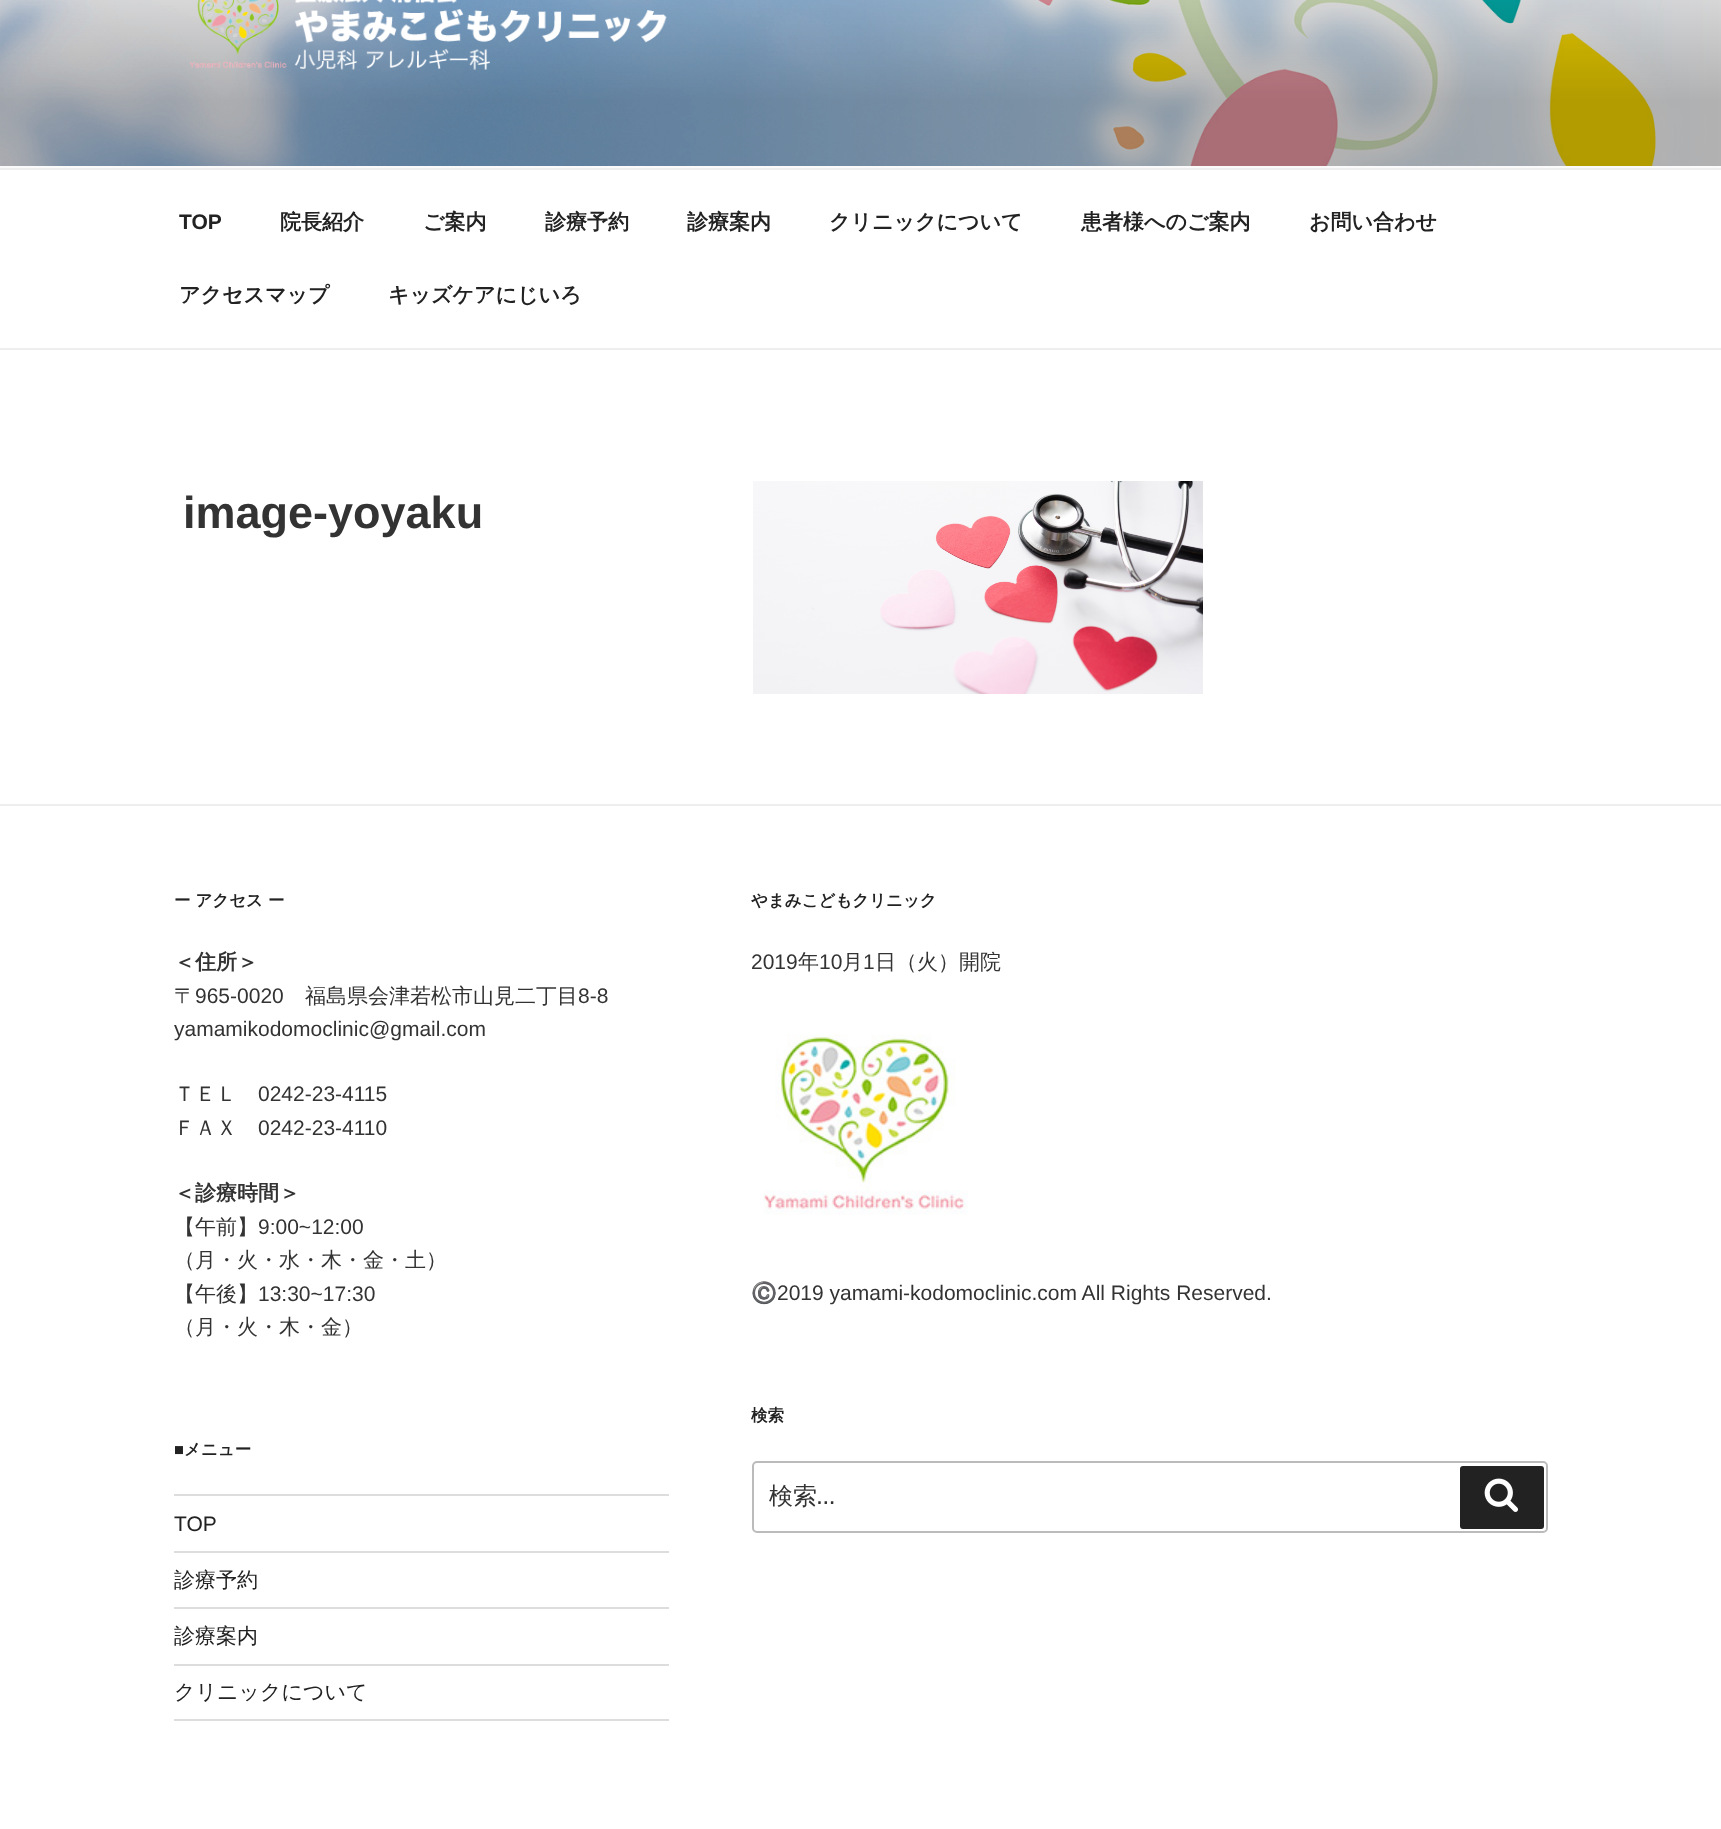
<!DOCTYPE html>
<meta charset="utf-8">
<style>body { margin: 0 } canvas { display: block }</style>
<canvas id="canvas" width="1721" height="1829"></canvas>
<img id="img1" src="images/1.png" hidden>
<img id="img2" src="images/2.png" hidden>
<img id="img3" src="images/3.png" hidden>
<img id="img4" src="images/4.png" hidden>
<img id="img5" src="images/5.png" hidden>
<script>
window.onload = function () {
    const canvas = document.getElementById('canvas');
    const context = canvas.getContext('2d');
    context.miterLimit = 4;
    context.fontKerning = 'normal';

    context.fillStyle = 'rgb(255, 255, 255)';
    context.fillRect(0, 0, 1721, 1829);
    context.fillStyle = 'rgb(250, 250, 250)';
    context.fillRect(0, 166, 1721, 2);
    context.drawImage(document.getElementById('img1'), 0, 0, 1721, 166);
    context.drawImage(document.getElementById('img2'), 189, 0, 478, 70);
    context.fillStyle = 'rgb(238, 238, 238)';
    context.fillRect(0, 168, 1721, 2);
    context.fillRect(0, 348, 1721, 2);
    context.drawImage(document.getElementById('img3'), 753, 481, 450, 213);
    context.fillRect(0, 804, 1721, 2);
    context.fillStyle = 'rgb(221, 221, 221)';
    context.fillRect(174, 1494, 495, 2);
    context.fillRect(174, 1551, 495, 2);
    context.fillRect(174, 1607, 495, 2);
    context.fillRect(174, 1664, 495, 2);
    context.fillRect(174, 1719, 495, 2);
    context.drawImage(document.getElementById('img4'), 763, 1034, 205, 181);
    context.beginPath();
    context.roundRect(753, 1462, 794, 70, 4);
    context.strokeStyle = 'rgb(187, 187, 187)';
    context.lineWidth = 2;
    context.stroke();
    context.fillStyle = 'rgb(34, 34, 34)';
    context.beginPath();
    context.roundRect(1460, 1466, 84, 63, 3);
    context.fill();
    context.drawImage(document.getElementById('img5'), 1484, 1478, 34, 34);
    context.font = 'bold 21px Liberation Sans';
    context.fillText('TOP', 179, 229);
    context.font = 'bold 21px WenQuanYi Zen Hei';
    context.fillText('院長紹介', 280, 229);
    context.fillText('ご案内', 423, 229);
    context.fillText('診療予約', 545, 229);
    context.fillText('診療案内', 687, 229);
    context.fillText('クリニックについて', 829, 229);
    context.fillText('患者様へのご案内', 1081, 229);
    context.fillText('お問い合わせ', 1309, 229);
    context.fillText('アクセスマップ', 179, 302);
    context.fillText('キッズケアにじいろ', 388, 302);
    context.font = 'bold 45px Liberation Sans';
    context.fillStyle = 'rgb(51, 51, 51)';
    context.fillText('image-yoyaku', 183, 528);
    context.font = 'bold 16.5px WenQuanYi Zen Hei';
    context.fillStyle = 'rgb(34, 34, 34)';
    context.fillText('ー アクセス ー', 174, 906);
    context.font = 'bold 21px WenQuanYi Zen Hei';
    context.fillStyle = 'rgb(51, 51, 51)';
    context.fillText('＜住所＞', 174, 969);
    context.font = '500 21px WenQuanYi Zen Hei';
    context.fillText('〒', 174, 1003);
    context.font = '21px Liberation Sans';
    context.fillText('965-0020', 195, 1003);
    context.font = '500 21px WenQuanYi Zen Hei';
    context.fillText('福島県会津若松市山見二丁目', 305, 1003);
    context.font = '21px Liberation Sans';
    context.fillText('8-8', 578, 1003);
    context.fillText('yamamikodomoclinic@gmail.com', 174, 1036);
    context.font = '500 21px WenQuanYi Zen Hei';
    context.fillText('ＴＥＬ', 174, 1101);
    context.font = '21px Liberation Sans';
    context.fillText('0242-23-4115', 258, 1101);
    context.font = '500 21px WenQuanYi Zen Hei';
    context.fillText('ＦＡＸ', 174, 1135);
    context.font = '21px Liberation Sans';
    context.fillText('0242-23-4110', 258, 1135);
    context.font = 'bold 21px WenQuanYi Zen Hei';
    context.fillText('＜診療時間＞', 174, 1200);
    context.font = '500 21px WenQuanYi Zen Hei';
    context.fillText('【午前】', 174, 1234);
    context.font = '21px Liberation Sans';
    context.fillText('9:00~12:00', 258, 1234);
    context.font = '500 21px WenQuanYi Zen Hei';
    context.fillText('（月・火・水・木・金・土）', 174, 1267);
    context.fillText('【午後】', 174, 1301);
    context.font = '21px Liberation Sans';
    context.fillText('13:30~17:30', 258, 1301);
    context.font = '500 21px WenQuanYi Zen Hei';
    context.fillText('（月・火・木・金）', 174, 1334);
    context.font = 'bold 16.5px Liberation Sans';
    context.fillStyle = 'rgb(34, 34, 34)';
    context.fillText('■', 174, 1455);
    context.font = 'bold 16.5px WenQuanYi Zen Hei';
    context.fillText('メニュー', 184, 1455);
    context.font = '21px Liberation Sans';
    context.fillText('TOP', 174, 1531);
    context.font = '500 21px WenQuanYi Zen Hei';
    context.fillText('診療予約', 174, 1587);
    context.fillText('診療案内', 174, 1643);
    context.fillText('クリニックについて', 174, 1699);
    context.font = 'bold 16.5px WenQuanYi Zen Hei';
    context.fillText('やまみこどもクリニック', 751, 906);
    context.font = '21px Liberation Sans';
    context.fillStyle = 'rgb(51, 51, 51)';
    context.fillText('2019', 751, 969);
    context.font = '500 21px WenQuanYi Zen Hei';
    context.fillText('年', 798, 969);
    context.font = '21px Liberation Sans';
    context.fillText('10', 819, 969);
    context.font = '500 21px WenQuanYi Zen Hei';
    context.fillText('月', 842, 969);
    context.font = '21px Liberation Sans';
    context.fillText('1', 863, 969);
    context.font = '500 21px WenQuanYi Zen Hei';
    context.fillText('日（火）開院', 875, 969);
    context.font = '21px Noto Color Emoji';
    context.fillText('©️', 751, 1300);
    context.font = '21px Liberation Sans';
    context.fillText('2019 yamami-kodomoclinic.com All Rights Reserved.', 777, 1300);
    context.font = 'bold 16.5px WenQuanYi Zen Hei';
    context.fillStyle = 'rgb(34, 34, 34)';
    context.fillText('検索', 751, 1421);
    context.font = '500 24px WenQuanYi Zen Hei';
    context.fillStyle = 'rgb(51, 51, 51)';
    context.fillText('検索', 769, 1504);
    context.font = '24px Libre Franklin';
    context.fillText('…', 817, 1504);
};
</script>
